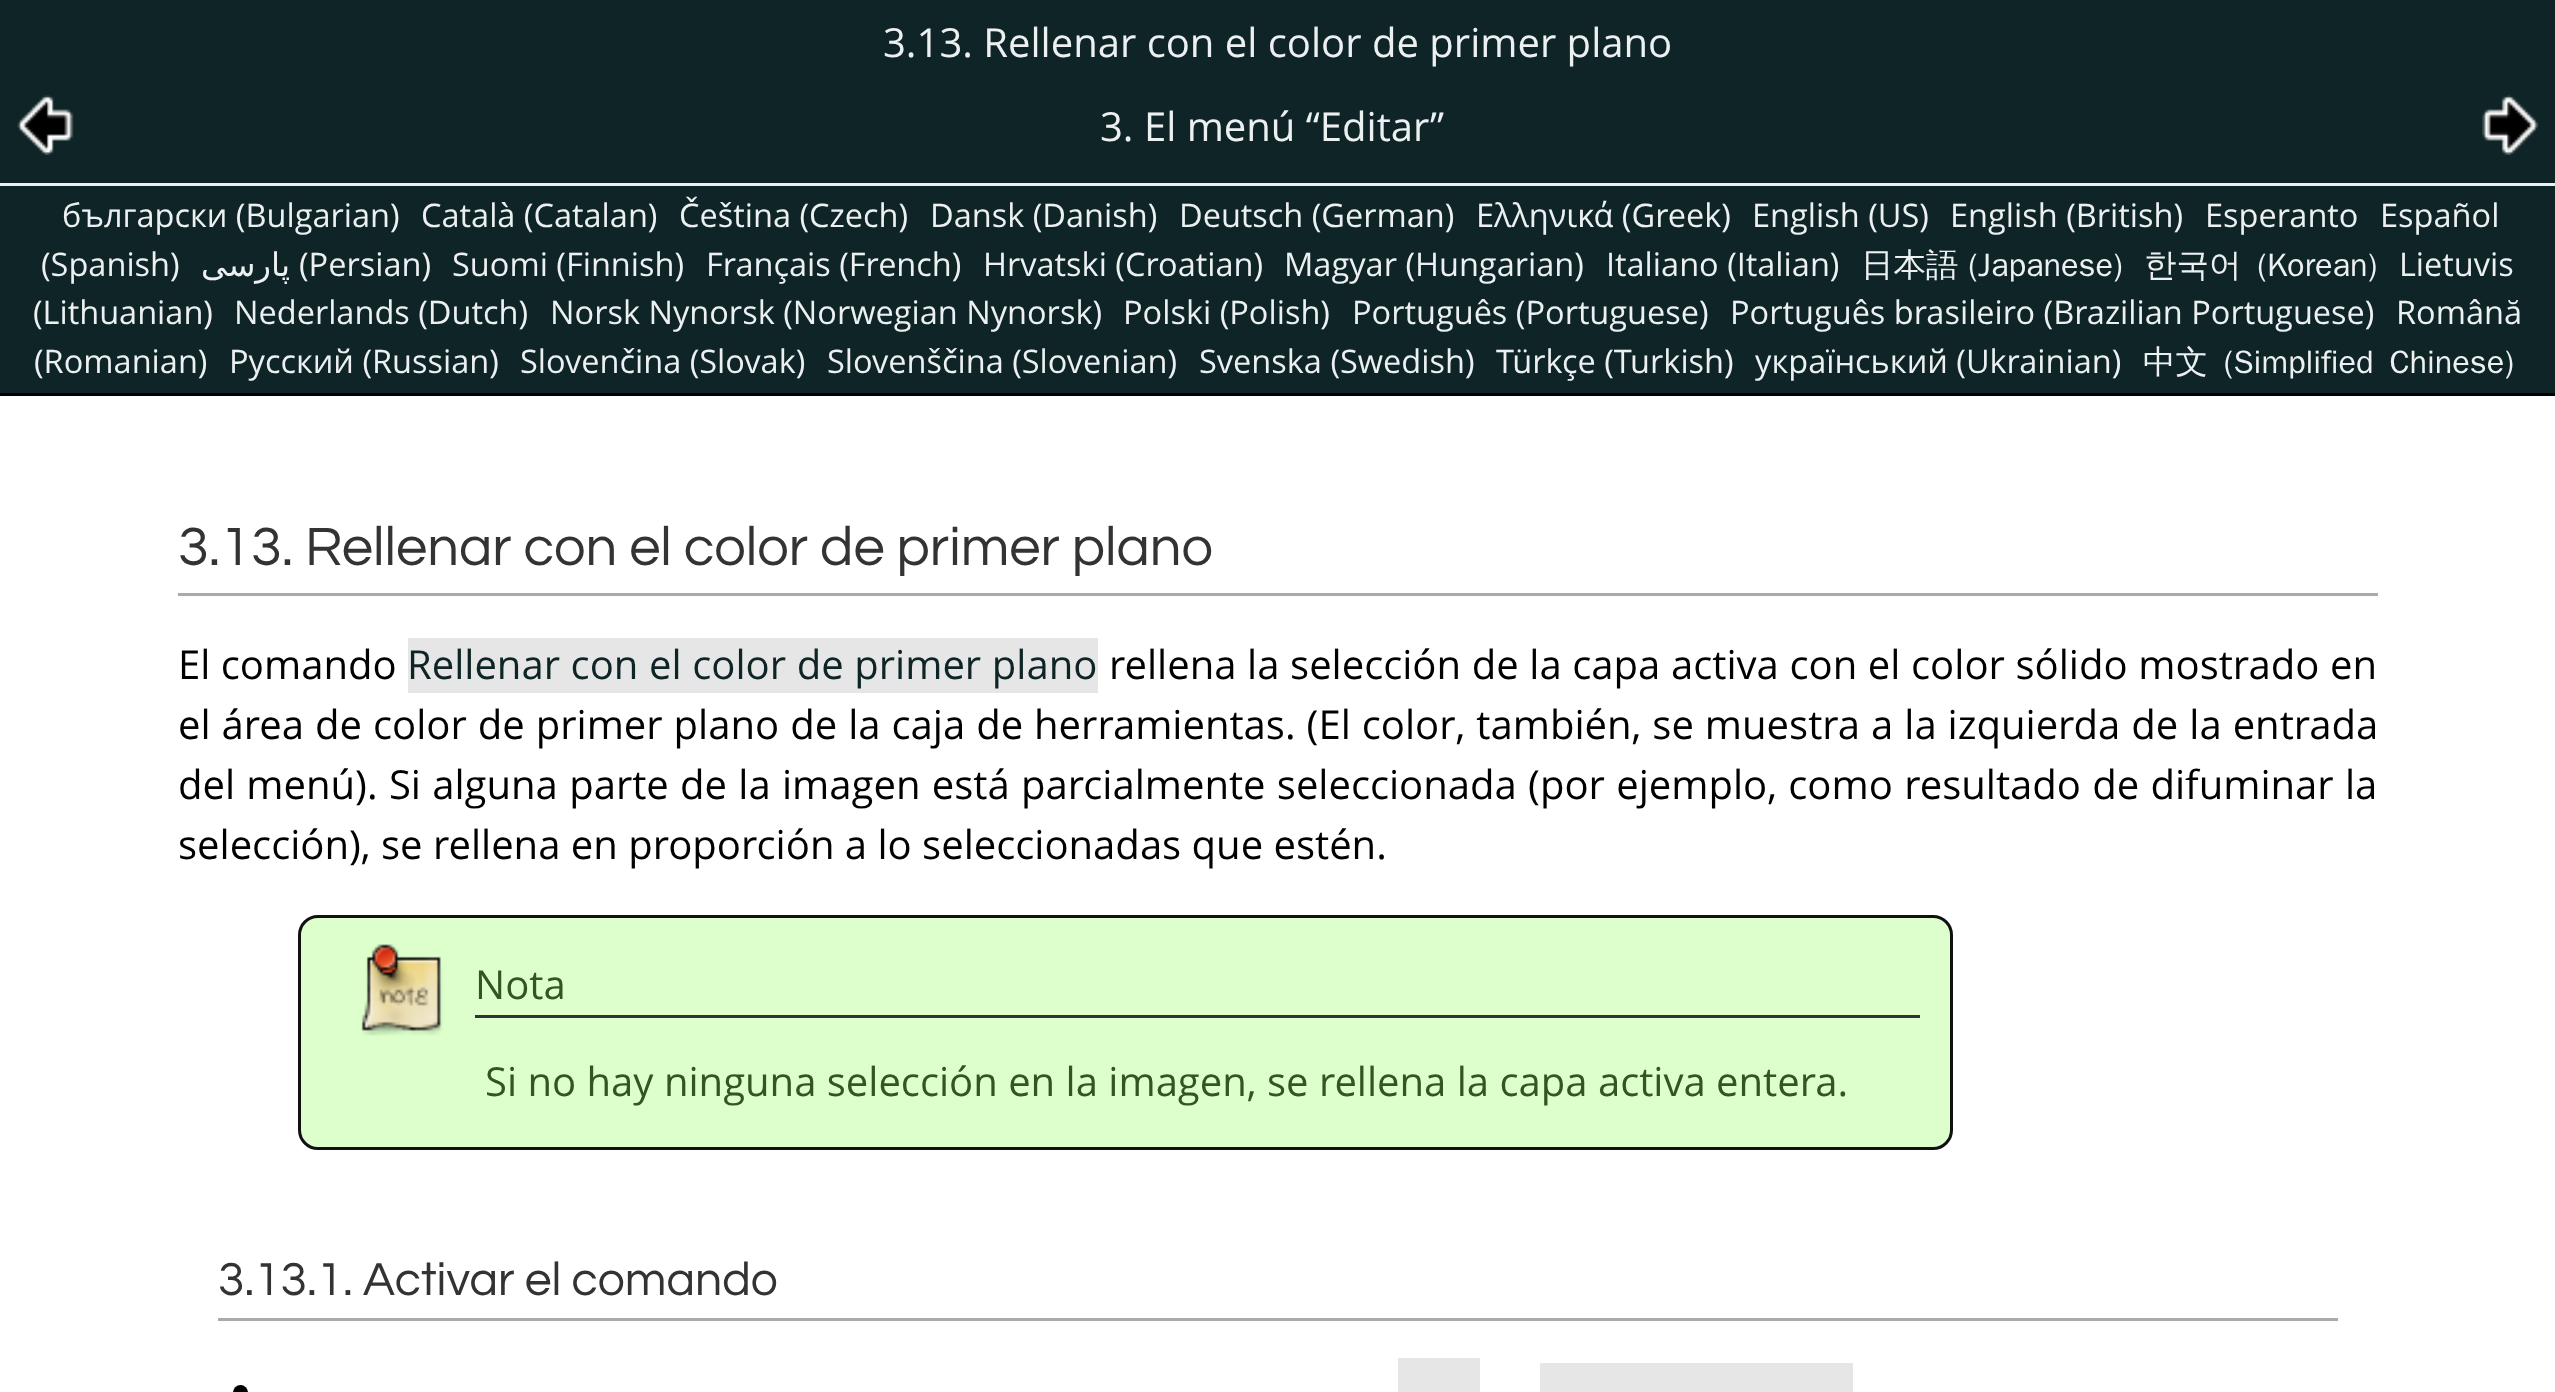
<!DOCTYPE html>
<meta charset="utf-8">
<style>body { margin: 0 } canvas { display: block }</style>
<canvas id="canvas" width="2555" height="1392"></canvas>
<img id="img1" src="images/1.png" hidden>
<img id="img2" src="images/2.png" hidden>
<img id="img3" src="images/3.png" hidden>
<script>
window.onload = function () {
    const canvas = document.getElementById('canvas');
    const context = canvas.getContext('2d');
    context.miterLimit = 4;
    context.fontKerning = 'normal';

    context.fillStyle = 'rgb(255, 255, 255)';
    context.fillRect(0, 0, 2555, 1392);
    context.fillStyle = 'rgb(14, 36, 38)';
    context.fillRect(0, 0, 2555, 393);
    context.fillStyle = 'rgb(0, 0, 0)';
    context.fillRect(0, 393, 2555, 3);
    context.drawImage(document.getElementById('img1'), 17, 95, 57, 60);
    context.drawImage(document.getElementById('img2'), 2482, 95, 57, 60);
    context.fillStyle = 'rgb(236, 240, 241)';
    context.fillRect(0, 183, 2555, 3);
    context.fillStyle = 'rgb(170, 170, 170)';
    context.fillRect(178, 593, 2200, 3);
    context.fillStyle = 'rgb(230, 230, 230)';
    context.fillRect(408, 638, 690, 55);
    context.fillStyle = 'rgb(221, 255, 204)';
    context.beginPath();
    context.roundRect(299.5, 916.5, 1652, 232, 18.5);
    context.fill();
    context.strokeStyle = 'rgb(17, 17, 17)';
    context.lineWidth = 3;
    context.stroke();
    context.drawImage(document.getElementById('img3'), 361, 944, 82, 92);
    context.fillStyle = 'rgb(46, 52, 54)';
    context.fillRect(475, 1015, 1445, 3);
    context.fillStyle = 'rgb(170, 170, 170)';
    context.fillRect(218, 1318, 2120, 3);
    context.fillStyle = 'rgb(0, 0, 0)';
    context.beginPath();
    context.arc(240.5, 1392.5, 7.5, 0, 2 * Math.PI);
    context.fill();
    context.fillStyle = 'rgb(230, 230, 230)';
    context.fillRect(1398, 1358, 82, 34);
    context.fillRect(1540, 1363, 313, 29);
    context.font = '40px Open Sans';
    context.fillStyle = 'rgb(236, 240, 241)';
    context.fillText('3.13. Rellenar con el color de primer plano', 883, 57);
    context.fillText('3. El menú “Editar', 1100, 141);
    context.fillText('”', 1430, 141);
    context.font = '32.5px Open Sans';
    context.fillText('български (Bulgarian)', 62, 227);
    context.fillText('Català (Catalan)', 421, 227);
    context.fillText('Čeština (Czech)', 679, 227);
    context.fillText('Dansk (Danish)', 930, 227);
    context.fillText('Deutsch (German)', 1179, 227);
    context.fillText('Ελληνικά (Greek)', 1476, 227);
    context.fillText('English (US)', 1752, 227);
    context.fillText('English (British)', 1950, 227);
    context.fillText('Esperanto', 2205, 227);
    context.fillText('Español', 2380, 227);
    context.fillText('(Spanish)', 41, 276);
    context.direction = 'rtl';
    context.font = '32.5px DejaVu Sans';
    context.fillText('پارسی', 290, 276);
    context.direction = 'ltr';
    context.font = '32.5px Open Sans';
    context.fillText('(Persian)', 299, 276);
    context.fillText('Suomi (Finnish)', 452, 276);
    context.fillText('Français (French)', 706, 276);
    context.fillText('Hrvatski (Croatian)', 983, 276);
    context.fillText('Magyar (Hungarian)', 1284, 276);
    context.fillText('Italiano (Italian)', 1606, 276);
    context.font = '500 32.5px WenQuanYi Zen Hei';
    context.fillText('日本語 (Japanese)', 1861, 276);
    context.wordSpacing = '6px';
    context.fillText('한국어 (Korean)', 2144, 276);
    context.wordSpacing = '0px';
    context.font = '32.5px Open Sans';
    context.fillText('Lietuvis', 2399, 276);
    context.fillText('(Lithuanian)', 33, 324);
    context.fillText('Nederlands (Dutch)', 234, 324);
    context.fillText('Norsk Nynorsk (Norwegian Nynorsk)', 550, 324);
    context.fillText('Polski (Polish)', 1123, 324);
    context.fillText('Português (Portuguese)', 1352, 324);
    context.fillText('Português brasileiro (Brazilian Portuguese)', 1730, 324);
    context.fillText('Română', 2396, 324);
    context.fillText('(Romanian)', 34, 373);
    context.fillText('Pусский (Russian)', 229, 373);
    context.fillText('Slovenčina (Slovak)', 520, 373);
    context.fillText('Slovenščina (Slovenian)', 827, 373);
    context.fillText('Svenska (Swedish)', 1199, 373);
    context.fillText('Türkçe (Turkish)', 1496, 373);
    context.fillText('український (Ukrainian)', 1755, 373);
    context.wordSpacing = '6px';
    context.font = '500 32.5px WenQuanYi Zen Hei';
    context.fillText('中文 (Simplified Chinese)', 2143, 373);
    context.wordSpacing = '0px';
    context.font = '56px Questrial';
    context.fillStyle = 'rgb(51, 51, 51)';
    context.fillText('3.13. Rellenar con el color de primer plano', 178, 565);
    context.font = '40px Open Sans';
    context.fillStyle = 'rgb(0, 0, 0)';
    context.fillText('El comando', 178, 679);
    context.wordSpacing = '0.25px';
    context.fillStyle = 'rgb(14, 36, 38)';
    context.fillText('Rellenar con el color de primer plano', 407, 679);
    context.fillStyle = 'rgb(0, 0, 0)';
    context.fillText('rellena la selección de la capa activa con el color sólido mostrado en', 1109, 679);
    context.wordSpacing = '0.6px';
    context.fillText('el área de color de primer plano de la caja de herramientas. (El color, también, se muestra a la izquierda de la entrada', 178, 739);
    context.wordSpacing = '0.9px';
    context.fillText('del menú). Si alguna parte de la imagen está parcialmente seleccionada (por ejemplo, como resultado de difuminar la', 178, 799);
    context.wordSpacing = '0px';
    context.fillText('selección), se rellena en proporción a lo seleccionadas que estén.', 178, 859);
    context.fillStyle = 'rgb(51, 85, 34)';
    context.fillText('Nota', 475, 999);
    context.fillText('Si no hay ninguna selección en la imagen, se rellena la capa activa entera.', 485, 1096);
    context.font = '48px Questrial';
    context.fillStyle = 'rgb(51, 51, 51)';
    context.fillText('3.13.1. Activar el comando', 218, 1295);
};
</script>
